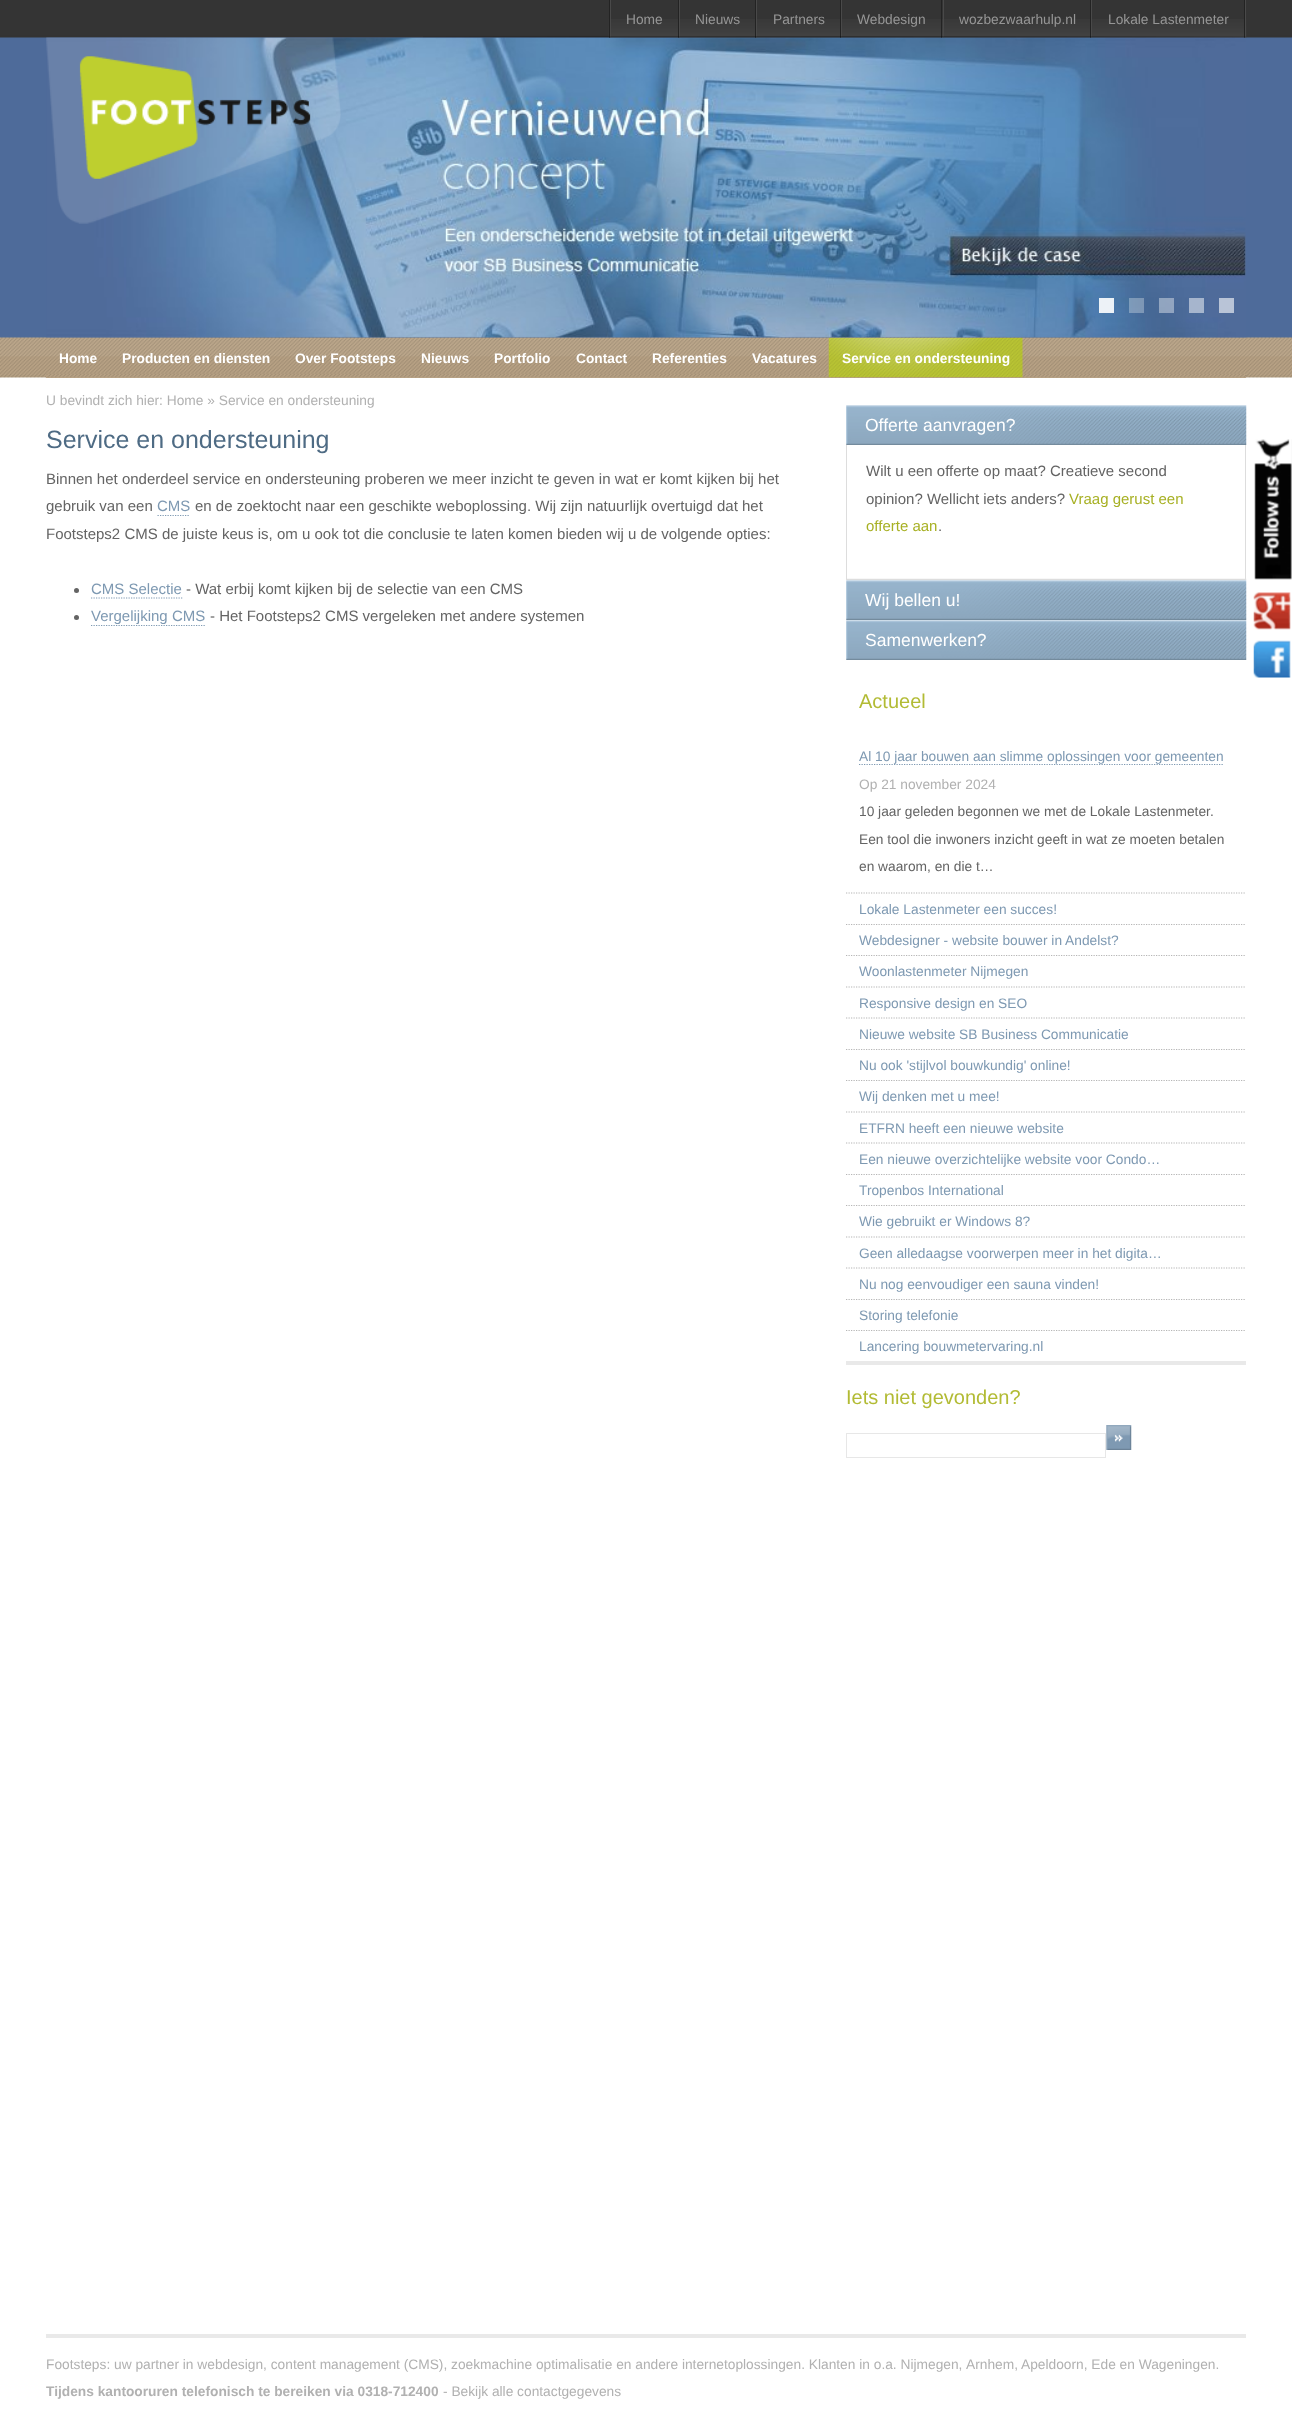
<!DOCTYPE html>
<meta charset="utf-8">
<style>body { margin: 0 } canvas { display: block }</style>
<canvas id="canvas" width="1292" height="2421"></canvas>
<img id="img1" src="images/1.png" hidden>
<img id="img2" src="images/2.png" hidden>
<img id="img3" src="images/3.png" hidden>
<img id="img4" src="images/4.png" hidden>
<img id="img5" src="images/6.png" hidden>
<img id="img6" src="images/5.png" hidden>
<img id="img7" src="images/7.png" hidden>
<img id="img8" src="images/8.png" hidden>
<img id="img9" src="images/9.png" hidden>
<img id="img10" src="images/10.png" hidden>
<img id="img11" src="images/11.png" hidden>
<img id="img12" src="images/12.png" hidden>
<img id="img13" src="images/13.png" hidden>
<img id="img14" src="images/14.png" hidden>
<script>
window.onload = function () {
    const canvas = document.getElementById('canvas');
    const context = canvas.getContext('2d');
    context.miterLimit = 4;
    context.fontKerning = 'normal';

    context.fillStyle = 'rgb(255, 255, 255)';
    context.fillRect(0, 0, 1292, 2421);
    context.drawImage(document.getElementById('img1'), 0, 0, 1292, 378);
    context.drawImage(document.getElementById('img2'), 608, 19, 639, 19);
    context.fillStyle = 'rgb(73, 73, 73)';
    context.fillRect(1245, 0, 1, 38);
    context.fillStyle = 'rgb(35, 35, 35)';
    context.fillRect(609, 0, 1, 38);
    context.fillRect(678, 0, 1, 38);
    context.fillStyle = 'rgb(73, 73, 73)';
    context.fillRect(610, 0, 1, 38);
    context.fillStyle = 'rgb(35, 35, 35)';
    context.fillRect(755, 0, 1, 38);
    context.fillStyle = 'rgb(73, 73, 73)';
    context.fillRect(679, 0, 1, 38);
    context.fillStyle = 'rgb(35, 35, 35)';
    context.fillRect(840, 0, 1, 38);
    context.fillStyle = 'rgb(73, 73, 73)';
    context.fillRect(756, 0, 1, 38);
    context.fillStyle = 'rgb(35, 35, 35)';
    context.fillRect(941, 0, 1, 38);
    context.fillStyle = 'rgb(73, 73, 73)';
    context.fillRect(841, 0, 1, 38);
    context.fillStyle = 'rgb(35, 35, 35)';
    context.fillRect(1090, 0, 1, 38);
    context.fillStyle = 'rgb(73, 73, 73)';
    context.fillRect(943, 0, 1, 38);
    context.fillStyle = 'rgb(35, 35, 35)';
    context.fillRect(1244, 0, 1, 38);
    context.fillStyle = 'rgb(73, 73, 73)';
    context.fillRect(1091, 0, 1, 38);
    context.drawImage(document.getElementById('img3'), 423, 36, 823, 2);
    context.drawImage(document.getElementById('img4'), 46, 37, 1200, 301);
    context.fillStyle = 'rgba(255, 255, 255, 0.9)';
    context.fillRect(1099, 298, 15, 15);
    context.fillStyle = 'rgba(255, 255, 255, 0.3)';
    context.fillRect(1129, 298, 15, 15);
    context.fillStyle = 'rgba(255, 255, 255, 0.4)';
    context.fillRect(1159, 298, 15, 15);
    context.fillStyle = 'rgb(166, 181, 205)';
    context.fillRect(1189, 298, 15, 15);
    context.fillStyle = 'rgb(185, 196, 215)';
    context.fillRect(1219, 298, 15, 15);
    context.fillStyle = 'rgb(184, 162, 133)';
    context.fillRect(46, 374, 1200, 4);
    context.drawImage(document.getElementById('img5'), 46, 373, 1200, 5);
    context.drawImage(document.getElementById('img6'), 828, 337, 195, 41);
    context.drawImage(document.getElementById('img7'), 46, 37, 295, 187);
    context.beginPath();
    context.moveTo(157.5, 515.5);
    context.lineTo(190, 515.5);
    context.strokeStyle = 'rgb(126, 153, 178)';
    context.lineWidth = 1.2;
    context.setLineDash([1.25, 1.25]);
    context.stroke();
    context.fillStyle = 'rgb(100, 100, 100)';
    context.beginPath();
    context.arc(76.5, 590.5, 2.5, 0, 2 * Math.PI);
    context.fill();
    context.beginPath();
    context.moveTo(91, 598);
    context.lineTo(182.5, 598);
    context.stroke();
    context.beginPath();
    context.arc(76.5, 617.5, 2.5, 0, 2 * Math.PI);
    context.fill();
    context.beginPath();
    context.moveTo(91, 625.5);
    context.lineTo(205, 625.5);
    context.stroke();
    context.drawImage(document.getElementById('img8'), 846, 405, 401, 40);
    context.drawImage(document.getElementById('img9'), 847, 578, 400, 2);
    context.fillStyle = 'rgb(221, 221, 221)';
    context.fillRect(1245, 445, 1, 135);
    context.fillRect(846, 445, 1, 135);
    context.drawImage(document.getElementById('img10'), 846, 580, 401, 40);
    context.drawImage(document.getElementById('img8'), 846, 620, 401, 40);
    context.fillStyle = 'rgb(233, 233, 233)';
    context.fillRect(846, 1361, 400, 4);
    context.beginPath();
    context.moveTo(859, 764.5);
    context.lineTo(1224, 764.5);
    context.stroke();
    context.beginPath();
    context.moveTo(846, 893);
    context.lineTo(1246, 893);
    context.strokeStyle = 'rgb(182, 182, 182)';
    context.stroke();
    context.beginPath();
    context.moveTo(846, 924.5);
    context.lineTo(1246, 924.5);
    context.stroke();
    context.beginPath();
    context.moveTo(846, 955.5);
    context.lineTo(1246, 955.5);
    context.stroke();
    context.beginPath();
    context.moveTo(846, 987);
    context.lineTo(1246, 987);
    context.stroke();
    context.beginPath();
    context.moveTo(846, 1018);
    context.lineTo(1246, 1018);
    context.stroke();
    context.beginPath();
    context.moveTo(846, 1049.5);
    context.lineTo(1246, 1049.5);
    context.stroke();
    context.beginPath();
    context.moveTo(846, 1080.5);
    context.lineTo(1246, 1080.5);
    context.stroke();
    context.beginPath();
    context.moveTo(846, 1112);
    context.lineTo(1246, 1112);
    context.stroke();
    context.beginPath();
    context.moveTo(846, 1143);
    context.lineTo(1246, 1143);
    context.stroke();
    context.beginPath();
    context.moveTo(846, 1174.5);
    context.lineTo(1246, 1174.5);
    context.stroke();
    context.beginPath();
    context.moveTo(846, 1205.5);
    context.lineTo(1246, 1205.5);
    context.stroke();
    context.beginPath();
    context.moveTo(846, 1237);
    context.lineTo(1246, 1237);
    context.stroke();
    context.beginPath();
    context.moveTo(846, 1268);
    context.lineTo(1246, 1268);
    context.stroke();
    context.beginPath();
    context.moveTo(846, 1299.5);
    context.lineTo(1246, 1299.5);
    context.stroke();
    context.beginPath();
    context.moveTo(846, 1330.5);
    context.lineTo(1246, 1330.5);
    context.stroke();
    context.strokeStyle = 'rgb(231, 231, 231)';
    context.lineWidth = 1;
    context.setLineDash([]);
    context.strokeRect(846.5, 1433.5, 259, 24);
    context.drawImage(document.getElementById('img11'), 1106, 1425, 26, 25);
    context.drawImage(document.getElementById('img12'), 1254, 439, 38, 141);
    context.drawImage(document.getElementById('img13'), 1253, 592, 38, 38);
    context.drawImage(document.getElementById('img14'), 1253, 640, 38, 38);
    context.fillRect(46, 2334, 1200, 4);
    context.font = '13.75px Liberation Sans';
    context.fillStyle = 'rgb(150, 150, 150)';
    context.fillText('Home', 626, 24);
    context.fillText('Nieuws', 695, 24);
    context.fillText('Partners', 773, 24);
    context.fillText('Webdesign', 857, 24);
    context.fillText('wozbezwaarhulp.nl', 959, 24);
    context.fillText('Lokale Lastenmeter', 1108, 24);
    context.font = 'bold 13.75px Liberation Sans';
    context.fillStyle = 'rgb(255, 255, 255)';
    context.fillText('Home', 59, 363);
    context.fillText('Producten en diensten', 122, 363);
    context.fillText('Over Footsteps', 295, 363);
    context.fillText('Nieuws', 421, 363);
    context.fillText('Portfolio', 494, 363);
    context.fillText('Contact', 576, 363);
    context.fillText('Referenties', 652, 363);
    context.fillText('Vacatures', 752, 363);
    context.fillText('Service en ondersteuning', 842, 363);
    context.font = '13.75px Liberation Sans';
    context.fillStyle = 'rgb(177, 177, 177)';
    context.fillText('U bevindt zich hier: Home » Service en ondersteuning', 46, 405);
    context.font = '25px Liberation Sans';
    context.fillStyle = 'rgb(78, 107, 132)';
    context.fillText('Service en ondersteuning', 46, 448);
    context.font = '15px Liberation Sans';
    context.fillStyle = 'rgb(100, 100, 100)';
    context.fillText('Binnen het onderdeel service en ondersteuning proberen we meer inzicht te geven in wat er komt kijken bij het', 46, 484);
    context.fillText('gebruik van een', 46, 511);
    context.fillStyle = 'rgb(126, 153, 178)';
    context.fillText('CMS', 157, 511);
    context.fillStyle = 'rgb(100, 100, 100)';
    context.fillText('en de zoektocht naar een geschikte weboplossing. Wij zijn natuurlijk overtuigd dat het', 195, 511);
    context.fillText('Footsteps2 CMS de juiste keus is, om u ook tot die conclusie te laten komen bieden wij u de volgende opties:', 46, 539);
    context.fillStyle = 'rgb(126, 153, 178)';
    context.fillText('CMS Selectie', 91, 594);
    context.fillStyle = 'rgb(100, 100, 100)';
    context.fillText('- Wat erbij komt kijken bij de selectie van een CMS', 186, 594);
    context.fillStyle = 'rgb(126, 153, 178)';
    context.fillText('Vergelijking CMS', 91, 621);
    context.fillStyle = 'rgb(100, 100, 100)';
    context.fillText('- Het Footsteps2 CMS vergeleken met andere systemen', 210, 621);
    context.font = '17.5px Liberation Sans';
    context.fillStyle = 'rgb(255, 255, 255)';
    context.fillText('Offerte aanvragen?', 865, 431);
    context.font = '15px Liberation Sans';
    context.fillStyle = 'rgb(100, 100, 100)';
    context.fillText('Wilt u een offerte op maat? Creatieve second', 866, 476);
    context.fillText('opinion? Wellicht iets anders?', 866, 504);
    context.fillStyle = 'rgb(167, 176, 35)';
    context.fillText('Vraag gerust een', 1069, 504);
    context.fillText('offerte aan', 866, 531);
    context.fillStyle = 'rgb(100, 100, 100)';
    context.fillText('.', 938, 531);
    context.font = '17.5px Liberation Sans';
    context.fillStyle = 'rgb(255, 255, 255)';
    context.fillText('Wij bellen u!', 865, 606);
    context.fillText('Samenwerken?', 865, 646);
    context.font = '20px Liberation Sans';
    context.fillStyle = 'rgb(178, 187, 52)';
    context.fillText('Actueel', 859, 708);
    context.font = '13.75px Liberation Sans';
    context.fillStyle = 'rgb(126, 153, 178)';
    context.fillText('Al 10 jaar bouwen aan slimme oplossingen voor gemeenten', 859, 761);
    context.fillStyle = 'rgb(177, 177, 177)';
    context.fillText('Op 21 november 2024', 859, 789);
    context.fillStyle = 'rgb(100, 100, 100)';
    context.fillText('10 jaar geleden begonnen we met de Lokale Lastenmeter.', 859, 816);
    context.fillText('Een tool die inwoners inzicht geeft in wat ze moeten betalen', 859, 844);
    context.fillText('en waarom, en die t…', 859, 871);
    context.fillStyle = 'rgb(126, 153, 178)';
    context.fillText('Lokale Lastenmeter een succes!', 859, 914);
    context.fillText('Webdesigner - website bouwer in Andelst?', 859, 945);
    context.fillText('Woonlastenmeter Nijmegen', 859, 976);
    context.fillText('Responsive design en SEO', 859, 1008);
    context.fillText('Nieuwe website SB Business Communicatie', 859, 1039);
    context.fillText('Nu ook \'stijlvol bouwkundig\' online!', 859, 1070);
    context.fillText('Wij denken met u mee!', 859, 1101);
    context.fillText('ETFRN heeft een nieuwe website', 859, 1133);
    context.fillText('Een nieuwe overzichtelijke website voor Condo…', 859, 1164);
    context.fillText('Tropenbos International', 859, 1195);
    context.fillText('Wie gebruikt er Windows 8?', 859, 1226);
    context.fillText('Geen alledaagse voorwerpen meer in het digita…', 859, 1258);
    context.fillText('Nu nog eenvoudiger een sauna vinden!', 859, 1289);
    context.fillText('Storing telefonie', 859, 1320);
    context.fillText('Lancering bouwmetervaring.nl', 859, 1351);
    context.font = '20px Liberation Sans';
    context.fillStyle = 'rgb(178, 187, 52)';
    context.fillText('Iets niet gevonden?', 846, 1404);
    context.font = '13.75px Liberation Sans';
    context.fillStyle = 'rgb(177, 177, 177)';
    context.fillText('Footsteps: uw partner in webdesign, content management (CMS), zoekmachine optimalisatie en andere internetoplossingen. Klanten in o.a. Nijmegen,', 46, 2369);
    context.fillText('Arnhem,', 966, 2369);
    context.fillText('Apeldoorn, Ede en Wageningen.', 1021, 2369);
    context.font = 'bold 13.75px Liberation Sans';
    context.fillText('Tijdens kantooruren telefonisch te bereiken via 0318-712400', 46, 2396);
    context.font = '13.75px Liberation Sans';
    context.fillText('- Bekijk alle contactgegevens', 443, 2396);
};
</script>
